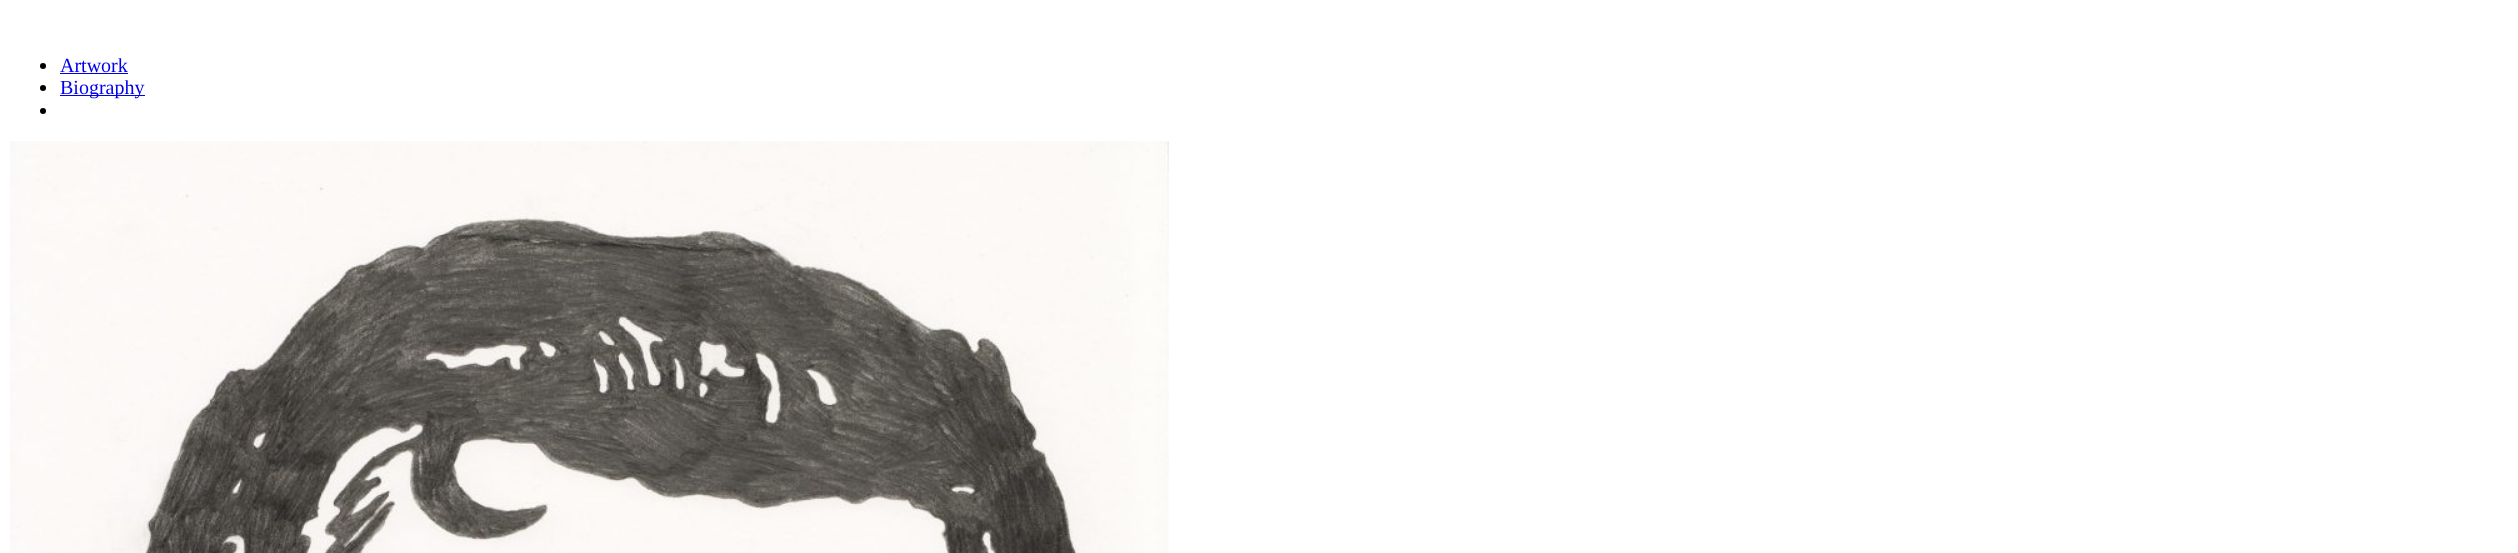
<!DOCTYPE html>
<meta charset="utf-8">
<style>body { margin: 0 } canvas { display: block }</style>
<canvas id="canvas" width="2518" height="553"></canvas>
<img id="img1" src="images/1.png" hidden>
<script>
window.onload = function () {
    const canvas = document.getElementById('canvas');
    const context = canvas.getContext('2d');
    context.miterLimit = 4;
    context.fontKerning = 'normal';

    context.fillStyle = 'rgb(255, 255, 255)';
    context.fillRect(0, 0, 2518, 553);
    context.fillStyle = 'rgb(0, 0, 0)';
    context.beginPath();
    context.arc(43, 66, 3, 0, 2 * Math.PI);
    context.fill();
    context.fillStyle = 'rgb(0, 0, 238)';
    context.fillRect(60, 73, 68, 1);
    context.fillStyle = 'rgb(0, 0, 0)';
    context.beginPath();
    context.arc(43, 88, 3, 0, 2 * Math.PI);
    context.fill();
    context.fillStyle = 'rgb(0, 0, 238)';
    context.fillRect(60, 95, 85, 1);
    context.fillStyle = 'rgb(0, 0, 0)';
    context.beginPath();
    context.arc(43, 111, 3, 0, 2 * Math.PI);
    context.fill();
    context.drawImage(document.getElementById('img1'), 10, 141, 1159, 412);
    context.font = '20px Liberation Serif';
    context.fillStyle = 'rgb(0, 0, 238)';
    context.fillText('Artwork', 60, 72);
    context.fillText('Biography', 60, 94);
};
</script>
